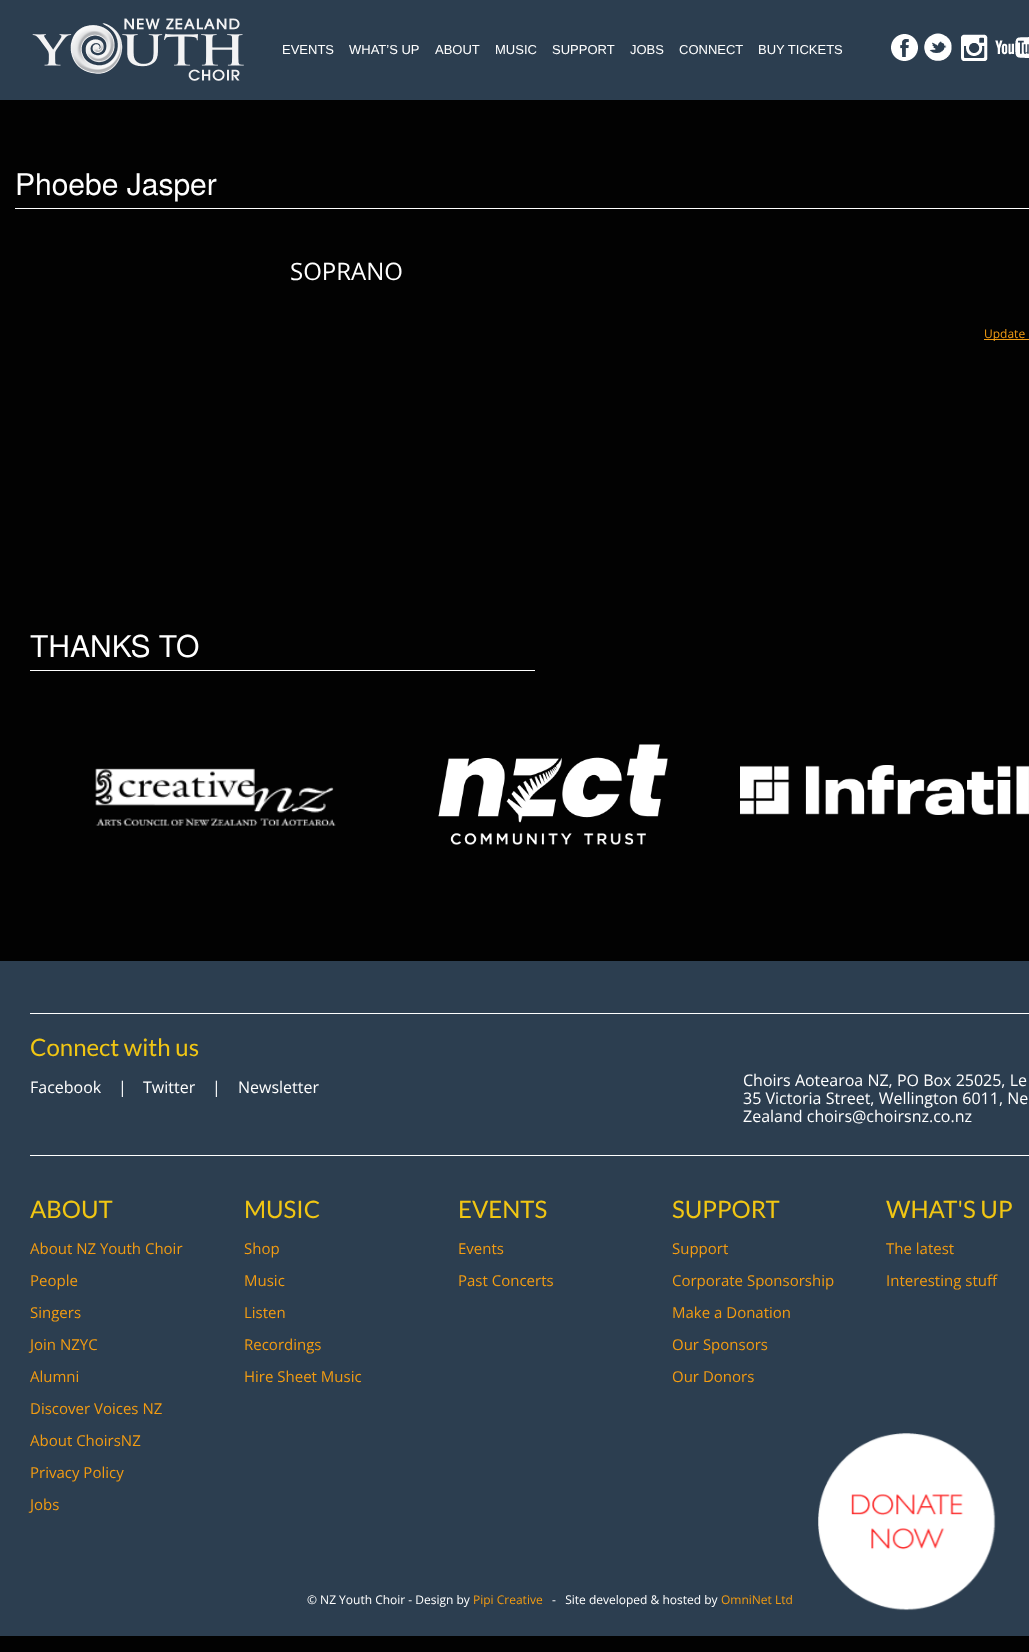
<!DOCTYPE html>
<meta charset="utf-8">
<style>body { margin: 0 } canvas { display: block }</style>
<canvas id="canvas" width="1029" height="1652"></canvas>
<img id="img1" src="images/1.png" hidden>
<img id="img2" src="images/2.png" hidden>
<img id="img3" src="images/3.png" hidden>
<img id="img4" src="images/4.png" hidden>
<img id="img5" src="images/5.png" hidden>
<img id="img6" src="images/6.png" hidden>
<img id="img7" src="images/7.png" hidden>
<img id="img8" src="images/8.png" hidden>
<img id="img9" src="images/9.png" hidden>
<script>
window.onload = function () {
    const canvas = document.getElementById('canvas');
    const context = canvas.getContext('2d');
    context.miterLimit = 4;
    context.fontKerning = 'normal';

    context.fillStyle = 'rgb(2, 2, 2)';
    context.fillRect(0, 0, 1029, 1652);
    context.fillStyle = 'rgb(44, 62, 80)';
    context.fillRect(0, 0, 1029, 100);
    context.drawImage(document.getElementById('img1'), 32, 18, 212, 63);
    context.drawImage(document.getElementById('img2'), 891, 34, 27, 27);
    context.drawImage(document.getElementById('img3'), 924, 33, 28, 28);
    context.drawImage(document.getElementById('img4'), 961, 34, 27, 27);
    context.drawImage(document.getElementById('img5'), 995, 37, 34, 21);
    context.fillStyle = 'rgb(255, 255, 255)';
    context.fillRect(15, 208, 1014, 1);
    context.fillStyle = 'rgb(243, 156, 18)';
    context.fillRect(984, 339, 45, 1);
    context.fillStyle = 'rgb(255, 255, 255)';
    context.fillRect(30, 670, 505, 1);
    context.drawImage(document.getElementById('img6'), 95, 768, 241, 58);
    context.drawImage(document.getElementById('img7'), 438, 744, 230, 101);
    context.drawImage(document.getElementById('img8'), 740, 765, 289, 50);
    context.fillStyle = 'rgb(44, 62, 80)';
    context.fillRect(0, 961, 1029, 675);
    context.fillStyle = 'rgb(255, 255, 255)';
    context.fillRect(30, 1013, 999, 1);
    context.fillRect(30, 1155, 999, 1);
    context.drawImage(document.getElementById('img9'), 818, 1433, 178, 178);
    context.font = '13px Liberation Sans';
    context.fillText('EVENTS', 282, 54);
    context.fillText('WHAT’S UP', 349, 54);
    context.fillText('ABOUT', 435, 54);
    context.fillText('MUSIC', 495, 54);
    context.fillText('SUPPORT', 552, 54);
    context.fillText('JOBS', 630, 54);
    context.fillText('CONNECT', 679, 54);
    context.fillText('BUY TICKETS', 758, 54);
    context.font = '30px TeX Gyre Heros';
    context.fillText('Phoebe Jasper', 15, 195);
    context.font = '24px Open Sans';
    context.fillText('SOPRANO', 290, 280);
    context.font = '12px Open Sans';
    context.fillStyle = 'rgb(243, 156, 18)';
    context.fillText('Update', 984, 338);
    context.font = '30px TeX Gyre Heros';
    context.fillStyle = 'rgb(255, 255, 255)';
    context.fillText('THANKS TO', 30, 657);
    context.font = '24px Lato';
    context.fillStyle = 'rgb(241, 198, 19)';
    context.fillText('Connect with us', 30, 1056);
    context.font = '16px Open Sans';
    context.fillStyle = 'rgb(255, 255, 255)';
    context.fillText('Facebook', 30, 1093);
    context.fillText('|', 118, 1093);
    context.fillText('Twitter', 143, 1093);
    context.fillText('|', 212, 1093);
    context.fillText('Newsletter', 238, 1093);
    context.fillText('Choirs Aotearoa NZ, PO Box 25025, Le', 743, 1086);
    context.fillText('35 Victoria Street, Wellington 6011, Ne', 743, 1104);
    context.fillText('Zealand choirs@choirsnz.co.nz', 743, 1122);
    context.font = '24px Lato';
    context.fillStyle = 'rgb(241, 198, 19)';
    context.fillText('ABOUT', 30, 1218);
    context.font = '15px Open Sans';
    context.fillStyle = 'rgb(243, 156, 18)';
    context.fillText('About NZ Youth Choir', 30, 1254);
    context.fillText('People', 30, 1286);
    context.fillText('Singers', 30, 1318);
    context.fillText('Join NZYC', 30, 1350);
    context.fillText('Alumni', 30, 1382);
    context.fillText('Discover Voices NZ', 30, 1414);
    context.fillText('About ChoirsNZ', 30, 1446);
    context.fillText('Privacy Policy', 30, 1478);
    context.fillText('Jobs', 30, 1510);
    context.font = '24px Lato';
    context.fillStyle = 'rgb(241, 198, 19)';
    context.fillText('MUSIC', 244, 1218);
    context.font = '15px Open Sans';
    context.fillStyle = 'rgb(243, 156, 18)';
    context.fillText('Shop', 244, 1254);
    context.fillText('Music', 244, 1286);
    context.fillText('Listen', 244, 1318);
    context.fillText('Recordings', 244, 1350);
    context.fillText('Hire Sheet Music', 244, 1382);
    context.font = '24px Lato';
    context.fillStyle = 'rgb(241, 198, 19)';
    context.fillText('EVENTS', 458, 1218);
    context.font = '15px Open Sans';
    context.fillStyle = 'rgb(243, 156, 18)';
    context.fillText('Events', 458, 1254);
    context.fillText('Past Concerts', 458, 1286);
    context.font = '24px Lato';
    context.fillStyle = 'rgb(241, 198, 19)';
    context.fillText('SUPPORT', 672, 1218);
    context.font = '15px Open Sans';
    context.fillStyle = 'rgb(243, 156, 18)';
    context.fillText('Support', 672, 1254);
    context.fillText('Corporate Sponsorship', 672, 1286);
    context.fillText('Make a Donation', 672, 1318);
    context.fillText('Our Sponsors', 672, 1350);
    context.fillText('Our Donors', 672, 1382);
    context.font = '24px Lato';
    context.fillStyle = 'rgb(241, 198, 19)';
    context.fillText('WHAT\'S UP', 886, 1218);
    context.font = '15px Open Sans';
    context.fillStyle = 'rgb(243, 156, 18)';
    context.fillText('The latest', 886, 1254);
    context.fillText('Interesting stuff', 886, 1286);
    context.font = '12px Open Sans';
    context.fillStyle = 'rgb(255, 255, 255)';
    context.fillText('© NZ Youth Choir - Design by', 307, 1604);
    context.fillStyle = 'rgb(243, 156, 18)';
    context.fillText('Pipi Creative', 473, 1604);
    context.fillStyle = 'rgb(255, 255, 255)';
    context.fillText('-   Site developed & hosted by', 552, 1604);
    context.fillStyle = 'rgb(243, 156, 18)';
    context.fillText('OmniNet Ltd', 721, 1604);
};
</script>
